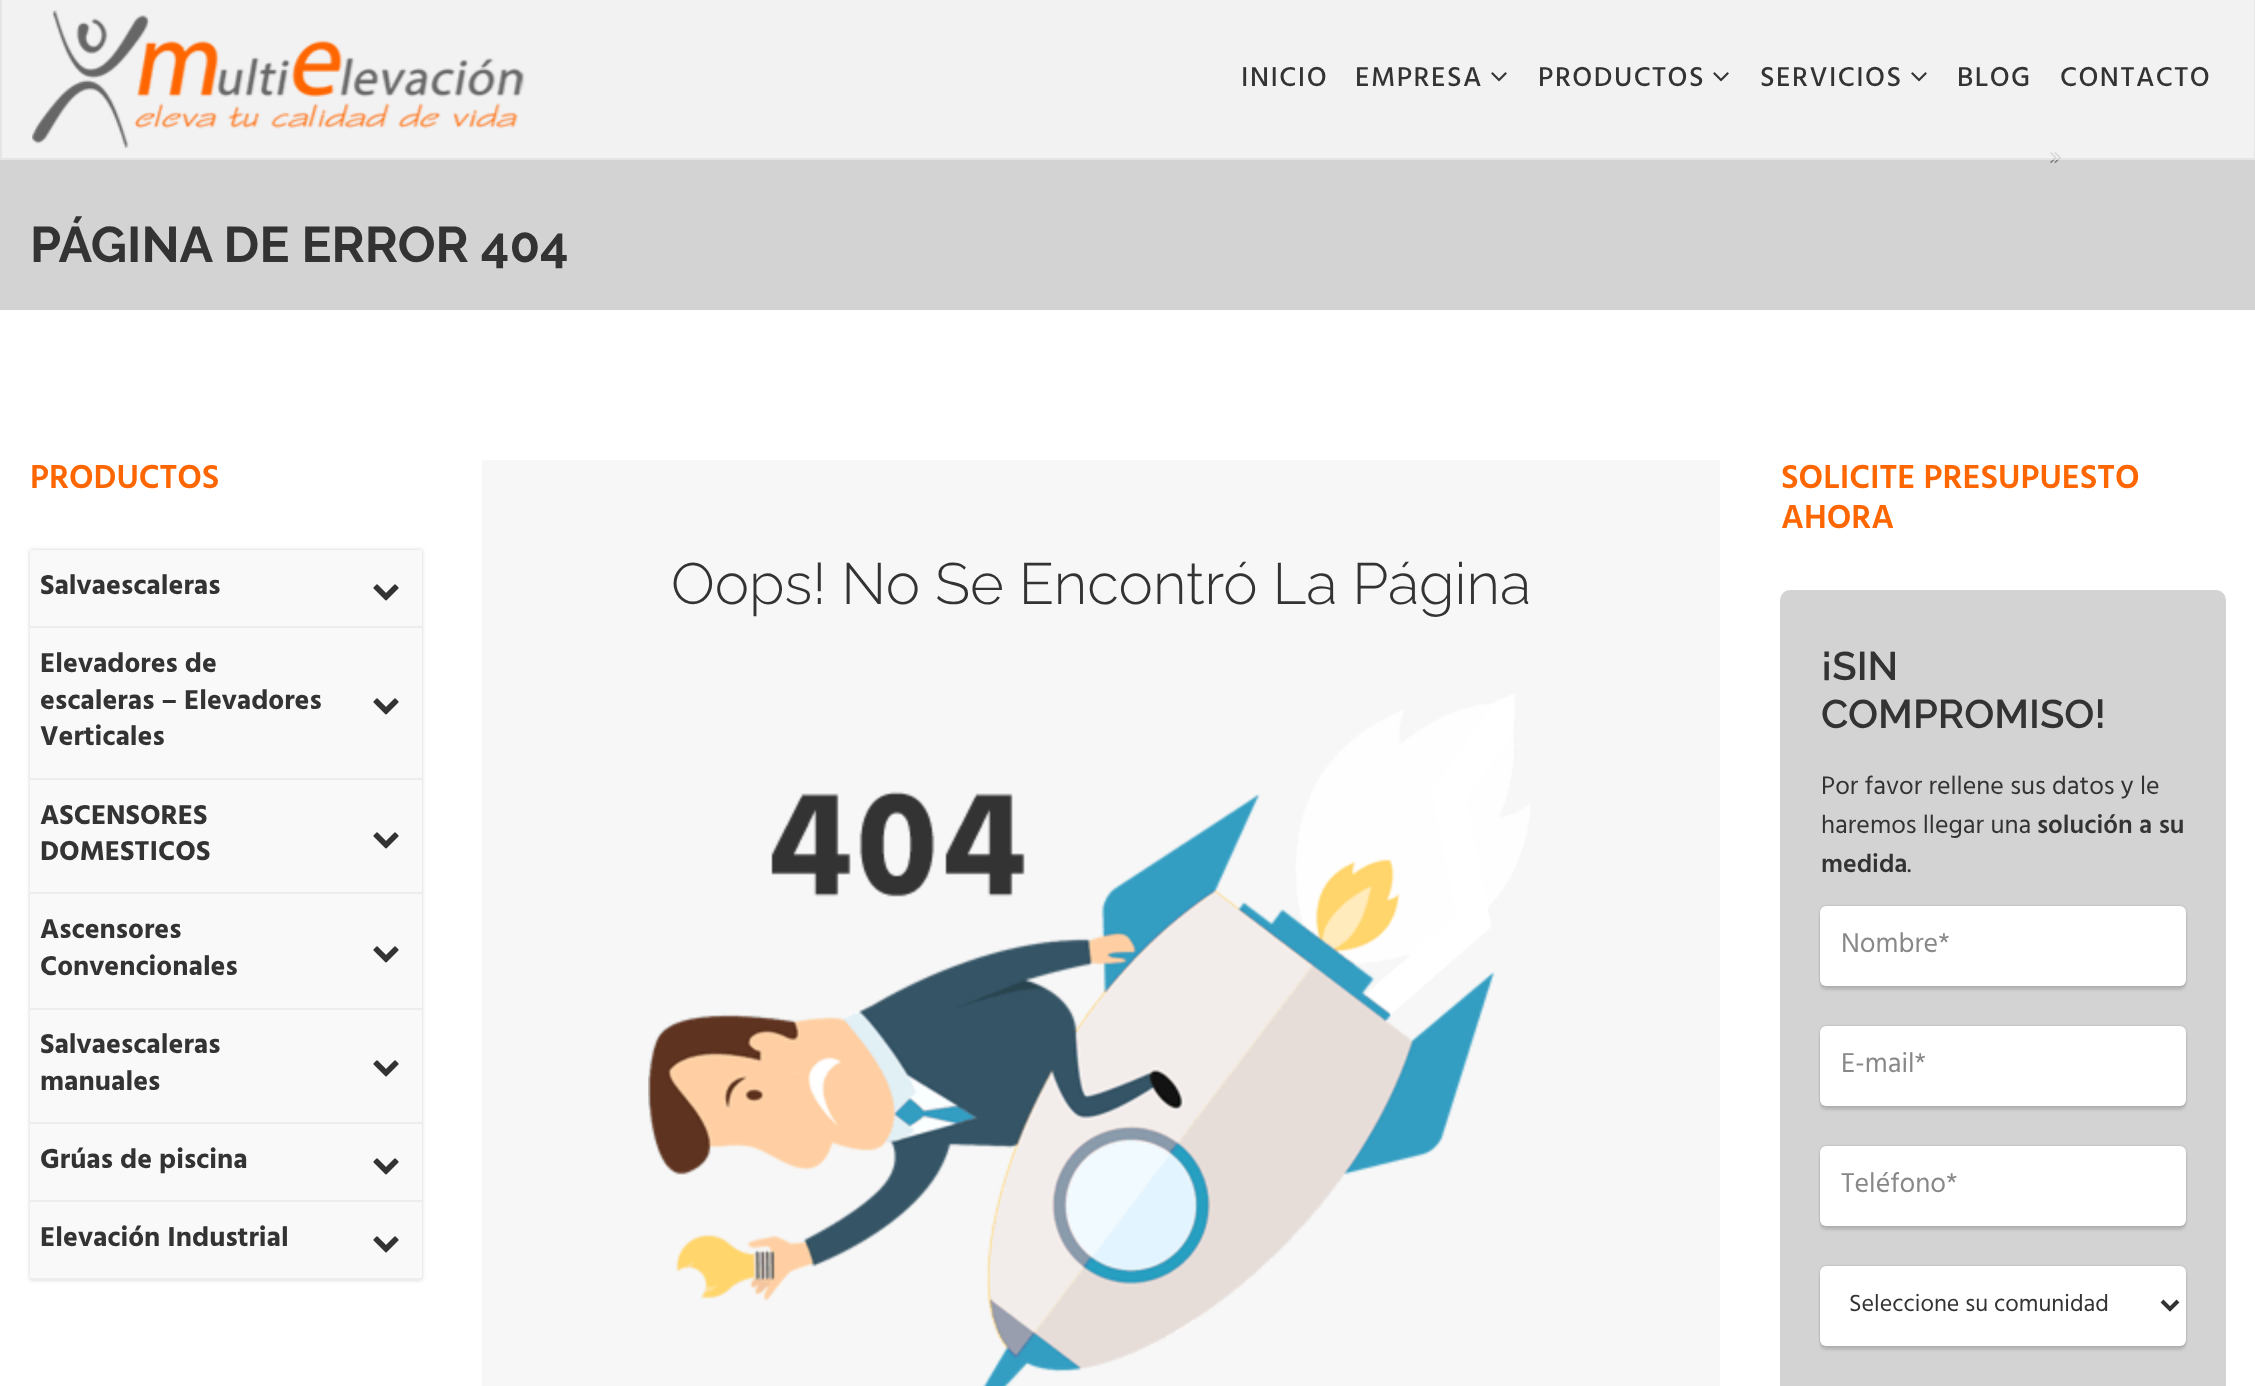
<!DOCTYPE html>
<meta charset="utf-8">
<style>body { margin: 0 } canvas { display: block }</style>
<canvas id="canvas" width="2255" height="1386"></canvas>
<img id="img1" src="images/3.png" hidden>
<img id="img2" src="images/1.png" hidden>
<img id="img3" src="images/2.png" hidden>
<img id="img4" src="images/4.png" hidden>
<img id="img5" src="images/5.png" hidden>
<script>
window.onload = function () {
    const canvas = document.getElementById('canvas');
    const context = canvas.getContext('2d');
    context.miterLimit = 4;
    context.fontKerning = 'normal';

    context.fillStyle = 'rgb(255, 255, 255)';
    context.fillRect(0, 0, 2255, 1386);
    context.fillStyle = 'rgb(211, 211, 211)';
    context.fillRect(0, 0, 2255, 310);
    context.drawImage(document.getElementById('img1'), 2050, 152, 11, 11);
    context.fillStyle = 'rgba(255, 255, 255, 0.7)';
    context.fillRect(0, 0, 2255, 160);
    context.fillStyle = 'rgb(230, 230, 230)';
    context.beginPath();
    context.moveTo(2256, 0);
    context.lineTo(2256, 160);
    context.lineTo(2254, 158);
    context.lineTo(2254, 0);
    context.closePath();
    context.fill();
    context.fillStyle = 'rgba(0, 0, 0, 0.05)';
    context.beginPath();
    context.moveTo(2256, 160);
    context.lineTo(0, 160);
    context.lineTo(2, 158);
    context.lineTo(2254, 158);
    context.closePath();
    context.fill();
    context.beginPath();
    context.moveTo(0, 160);
    context.lineTo(0, 0);
    context.lineTo(2, 0);
    context.lineTo(2, 158);
    context.closePath();
    context.fill();
    context.drawImage(document.getElementById('img2'), 32, 10, 493, 138);
    context.drawImage(document.getElementById('img3'), 1491, 72, 16, 10);
    context.drawImage(document.getElementById('img3'), 1713, 72, 16, 10);
    context.drawImage(document.getElementById('img3'), 1911, 72, 16, 10);
    context.fillStyle = 'rgba(0, 0, 0, 0.17)';
    context.filter = 'blur(2px)';
    context.beginPath();
    context.rect(30, 550, 392, 730);
    context.fill();
    context.filter = 'none';
    context.fillStyle = 'rgb(249, 249, 249)';
    context.fillRect(30, 550, 392, 728);
    context.fillStyle = 'rgb(237, 237, 237)';
    context.fillRect(30, 626, 392, 2);
    context.drawImage(document.getElementById('img4'), 373, 584, 26, 17);
    context.fillRect(30, 778, 392, 2);
    context.drawImage(document.getElementById('img4'), 373, 698, 26, 17);
    context.fillRect(30, 892, 392, 2);
    context.drawImage(document.getElementById('img4'), 373, 832, 26, 17);
    context.fillRect(30, 1008, 392, 2);
    context.drawImage(document.getElementById('img4'), 373, 946, 26, 17);
    context.fillRect(30, 1122, 392, 2);
    context.drawImage(document.getElementById('img4'), 373, 1060, 26, 17);
    context.fillRect(30, 1200, 392, 2);
    context.drawImage(document.getElementById('img4'), 373, 1158, 26, 17);
    context.fillRect(30, 1278, 392, 2);
    context.drawImage(document.getElementById('img4'), 373, 1236, 26, 17);
    context.fillStyle = 'rgb(247, 247, 247)';
    context.fillRect(482, 460, 1238, 926);
    context.drawImage(document.getElementById('img5'), 648, 694, 883, 692);
    context.fillStyle = 'rgb(211, 211, 211)';
    context.beginPath();
    context.roundRect(1780, 590, 446, 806, 10);
    context.fill();
    context.fillStyle = 'rgba(0, 0, 0, 0.12)';
    context.filter = 'blur(1px)';
    context.beginPath();
    context.roundRect(1820, 910, 366, 80, 6);
    context.fill();
    context.filter = 'none';
    context.fillStyle = 'rgba(0, 0, 0, 0.16)';
    context.filter = 'blur(1px)';
    context.beginPath();
    context.roundRect(1820, 906, 366, 80, 6);
    context.fill();
    context.filter = 'none';
    context.fillStyle = 'rgb(255, 255, 255)';
    context.beginPath();
    context.roundRect(1820, 906, 366, 80, 6);
    context.fill();
    context.fillStyle = 'rgba(0, 0, 0, 0.12)';
    context.filter = 'blur(1px)';
    context.beginPath();
    context.roundRect(1820, 1030, 366, 80, 6);
    context.fill();
    context.filter = 'none';
    context.fillStyle = 'rgba(0, 0, 0, 0.16)';
    context.filter = 'blur(1px)';
    context.beginPath();
    context.roundRect(1820, 1026, 366, 80, 6);
    context.fill();
    context.filter = 'none';
    context.fillStyle = 'rgb(255, 255, 255)';
    context.beginPath();
    context.roundRect(1820, 1026, 366, 80, 6);
    context.fill();
    context.fillStyle = 'rgba(0, 0, 0, 0.12)';
    context.filter = 'blur(1px)';
    context.beginPath();
    context.roundRect(1820, 1150, 366, 80, 6);
    context.fill();
    context.filter = 'none';
    context.fillStyle = 'rgba(0, 0, 0, 0.16)';
    context.filter = 'blur(1px)';
    context.beginPath();
    context.roundRect(1820, 1146, 366, 80, 6);
    context.fill();
    context.filter = 'none';
    context.fillStyle = 'rgb(255, 255, 255)';
    context.beginPath();
    context.roundRect(1820, 1146, 366, 80, 6);
    context.fill();
    context.fillStyle = 'rgba(0, 0, 0, 0.12)';
    context.filter = 'blur(1px)';
    context.beginPath();
    context.roundRect(1820, 1270, 366, 80, 6);
    context.fill();
    context.filter = 'none';
    context.fillStyle = 'rgba(0, 0, 0, 0.16)';
    context.filter = 'blur(1px)';
    context.beginPath();
    context.roundRect(1820, 1266, 366, 80, 6);
    context.fill();
    context.filter = 'none';
    context.fillStyle = 'rgb(255, 255, 255)';
    context.beginPath();
    context.roundRect(1820, 1266, 366, 80, 6);
    context.fill();
    context.beginPath();
    context.moveTo(2162, 1301);
    context.lineTo(2170, 1309);
    context.lineTo(2178, 1301);
    context.strokeStyle = 'rgb(51, 51, 51)';
    context.lineWidth = 4;
    context.stroke();
    context.letterSpacing = '1.5px';
    context.font = '500 28px Hind';
    context.fillStyle = 'rgb(51, 51, 51)';
    context.fillText('INICIO', 1241, 86);
    context.fillText('EMPRESA', 1355, 86);
    context.fillText('PRODUCTOS', 1538, 86);
    context.fillText('SERVICIOS', 1760, 86);
    context.fillText('BLOG', 1957, 86);
    context.fillText('CONTACTO', 2060, 86);
    context.letterSpacing = '0px';
    context.font = 'bold 50px Raleway';
    context.fillText('PÁGINA DE ERROR 404', 30, 262);
    context.font = '600 34px Hind';
    context.fillStyle = 'rgb(254, 102, 1)';
    context.fillText('PRODUCTOS', 30, 488);
    context.font = 'bold 28px Hind';
    context.fillStyle = 'rgb(51, 51, 51)';
    context.fillText('Salvaescaleras', 40, 594);
    context.fillText('Elevadores de', 40, 672);
    context.fillText('escaleras – Elevadores', 40, 709);
    context.fillText('Verticales', 40, 745);
    context.fillText('ASCENSORES', 40, 824);
    context.fillText('DOMESTICOS', 40, 860);
    context.fillText('Ascensores', 40, 938);
    context.fillText('Convencionales', 40, 975);
    context.fillText('Salvaescaleras', 40, 1053);
    context.fillText('manuales', 40, 1090);
    context.fillText('Grúas de piscina', 40, 1168);
    context.fillText('Elevación Industrial', 40, 1246);
    context.font = '300 58px Raleway';
    context.fillText('Oops! No Se Encontró La Página', 671, 604);
    context.font = '600 34px Hind';
    context.fillStyle = 'rgb(254, 102, 1)';
    context.fillText('SOLICITE PRESUPUESTO', 1781, 488);
    context.fillText('AHORA', 1781, 528);
    context.font = '600 40px Raleway';
    context.fillStyle = 'rgb(51, 51, 51)';
    context.fillText('¡SIN', 1821, 680);
    context.fillText('COMPROMISO!', 1821, 728);
    context.font = '26px Hind';
    context.fillText('Por favor rellene sus datos y le', 1821, 794);
    context.fillText('haremos llegar una', 1821, 833);
    context.font = '600 26px Hind';
    context.fillText('solución a su', 2037, 833);
    context.fillText('medida', 1821, 872);
    context.font = '26px Hind';
    context.fillText('.', 1907, 872);
    context.font = '28px Hind';
    context.fillStyle = 'rgb(136, 136, 136)';
    context.fillText('Nombre*', 1841, 952);
    context.fillText('E-mail*', 1841, 1072);
    context.fillText('Teléfono*', 1841, 1192);
    context.font = '24px Hind';
    context.fillStyle = 'rgb(51, 51, 51)';
    context.fillText('Seleccione su comunidad', 1849, 1311);
};
</script>
